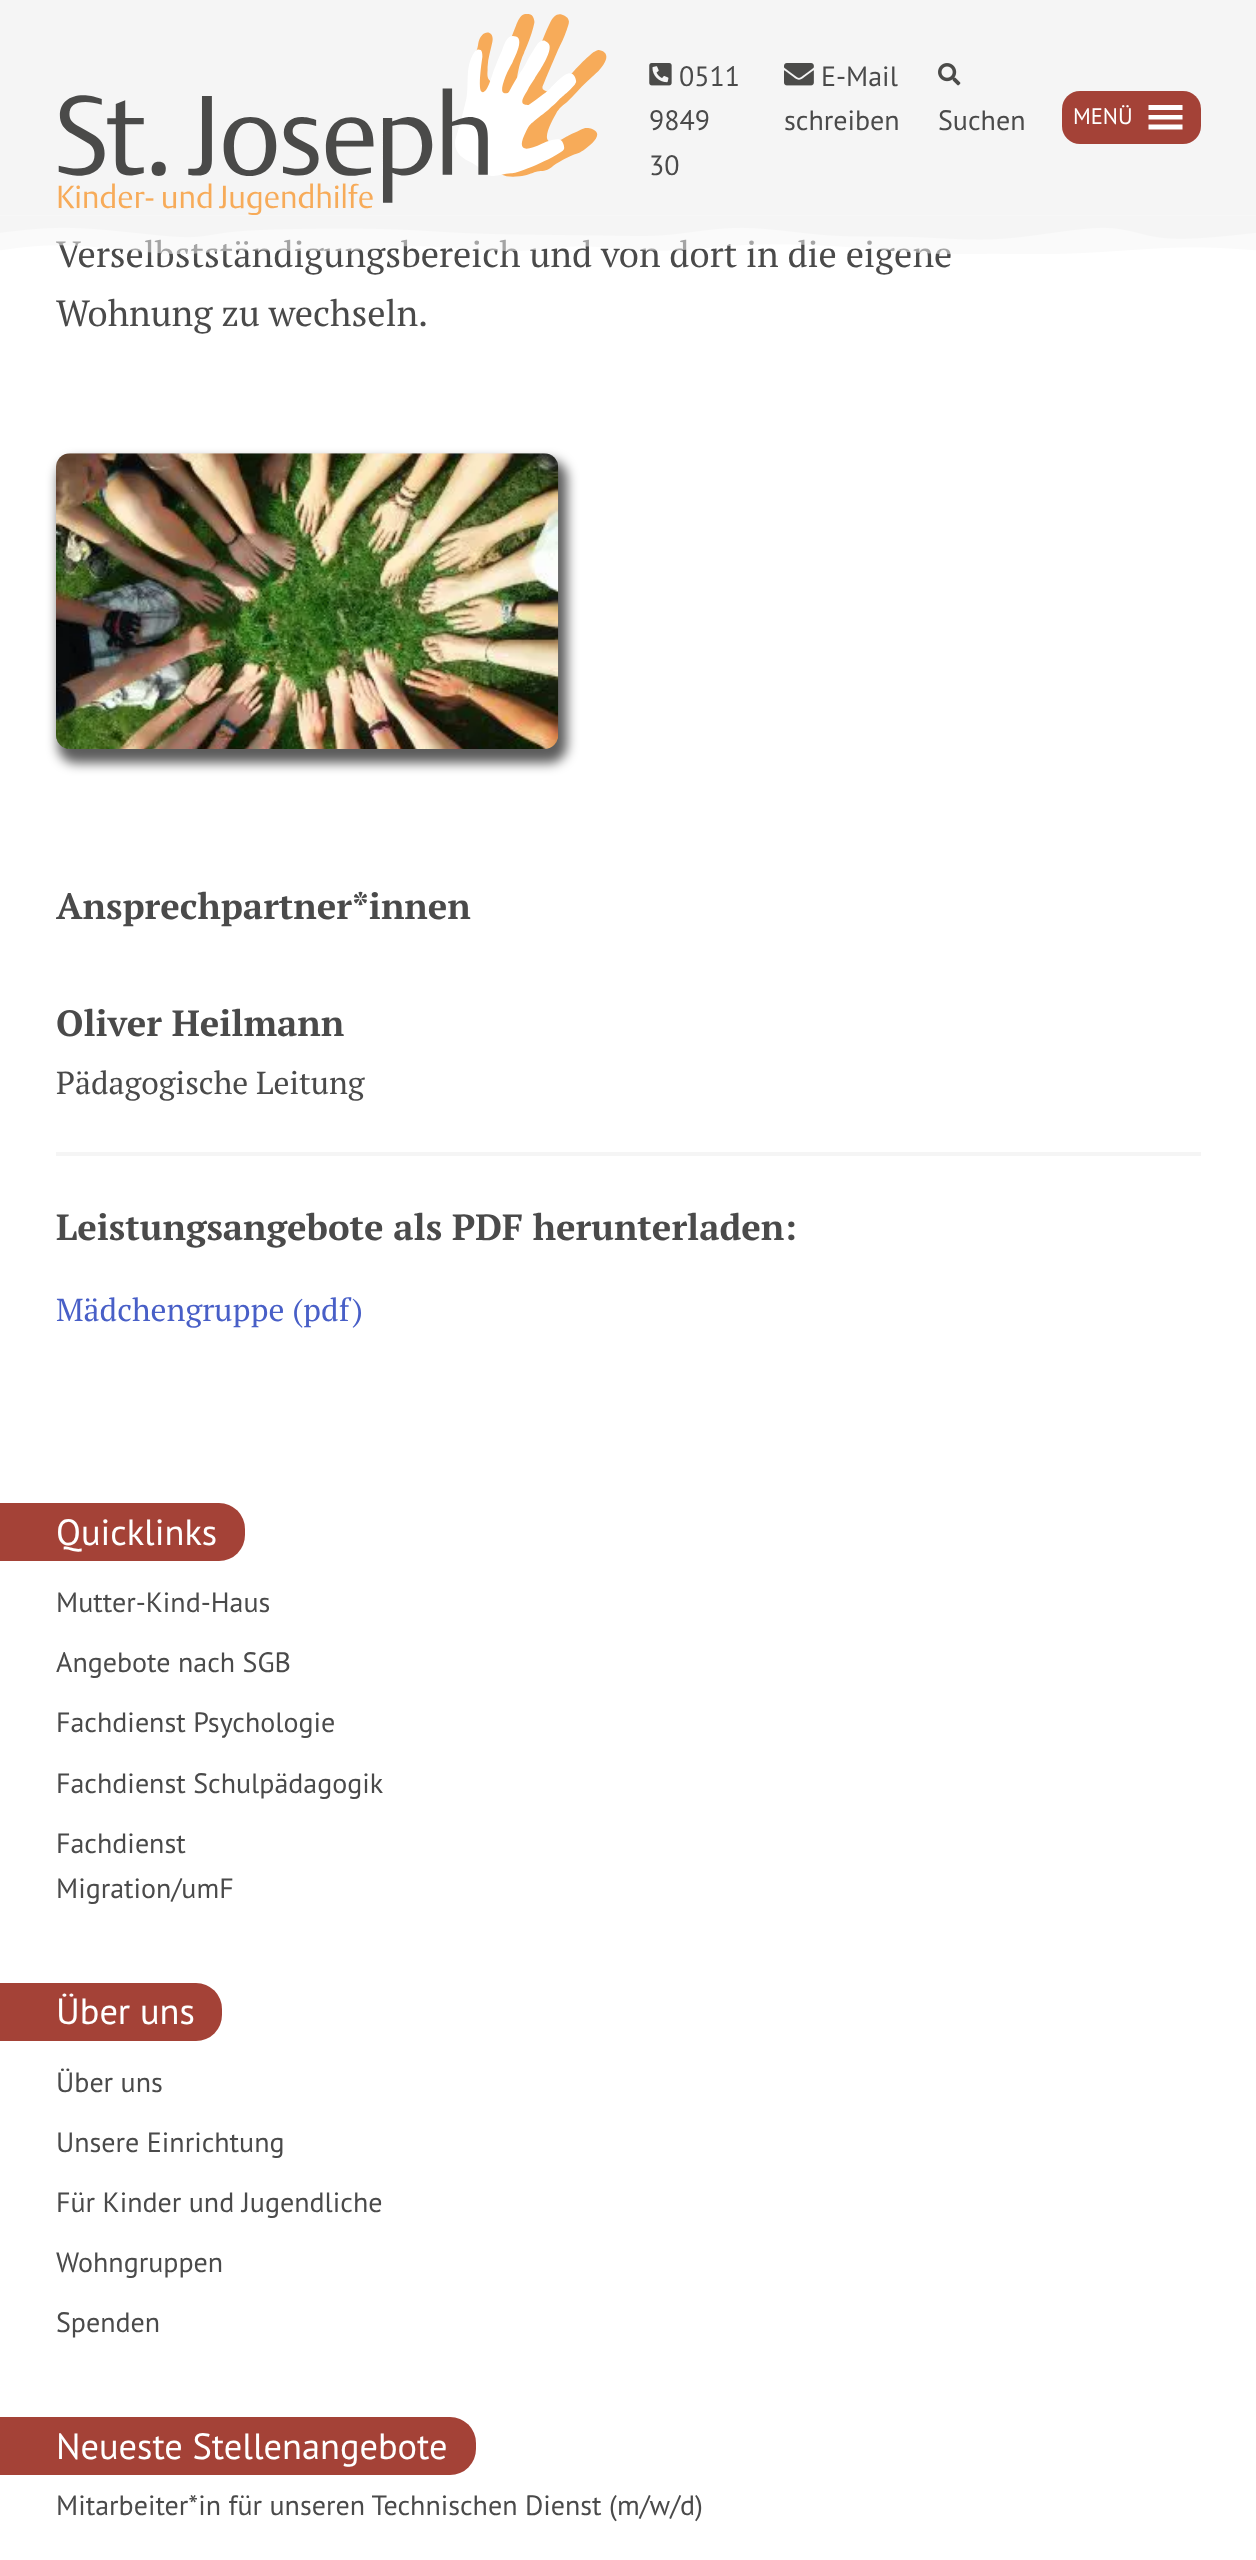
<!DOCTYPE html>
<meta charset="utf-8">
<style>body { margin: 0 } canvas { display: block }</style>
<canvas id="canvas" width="1256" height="2560"></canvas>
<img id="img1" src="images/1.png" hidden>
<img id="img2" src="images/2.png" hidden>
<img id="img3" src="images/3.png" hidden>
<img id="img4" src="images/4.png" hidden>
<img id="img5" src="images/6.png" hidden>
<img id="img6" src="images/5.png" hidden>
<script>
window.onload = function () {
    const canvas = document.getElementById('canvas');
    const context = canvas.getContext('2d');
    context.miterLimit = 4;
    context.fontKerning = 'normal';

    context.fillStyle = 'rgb(255, 255, 255)';
    context.fillRect(0, 0, 1256, 2560);
    context.fillStyle = 'rgb(245, 245, 245)';
    context.fillRect(0, 0, 1256, 215);
    context.drawImage(document.getElementById('img1'), 58, 14, 549, 201);
    context.drawImage(document.getElementById('img2'), 649, 63, 23, 23);
    context.drawImage(document.getElementById('img3'), 784, 63, 30, 23);
    context.drawImage(document.getElementById('img4'), 938, 63, 23, 23);
    context.fillStyle = 'rgb(164, 66, 55)';
    context.beginPath();
    context.roundRect(1062, 91, 139, 53, 18);
    context.fill();
    context.fillStyle = 'rgb(255, 255, 255)';
    context.beginPath();
    context.moveTo(1148.5, 129.5);
    context.lineTo(1182.5, 129.5);
    context.lineTo(1182.5, 124.5);
    context.lineTo(1148.5, 124.5);
    context.closePath();
    context.moveTo(1148.5, 105);
    context.lineTo(1148.5, 110);
    context.lineTo(1182.5, 110);
    context.lineTo(1182.5, 105);
    context.closePath();
    context.moveTo(1148.5, 119.5);
    context.lineTo(1182.5, 119.5);
    context.lineTo(1182.5, 115);
    context.lineTo(1148.5, 115);
    context.closePath();
    context.fill();
    context.fillStyle = 'rgba(0, 0, 0, 0.64)';
    context.filter = 'blur(6px)';
    context.beginPath();
    context.roundRect(58, 460, 509, 303, 18);
    context.fill();
    context.filter = 'none';
    context.drawImage(document.getElementById('img5'), 56, 453, 503, 296);
    context.fillStyle = 'rgb(245, 245, 245)';
    context.fillRect(56, 1152, 1145, 4);
    context.fillStyle = 'rgb(164, 66, 55)';
    context.beginPath();
    context.roundRect(56, 1503, 189, 58, [0, 26, 26, 0]);
    context.fill();
    context.fillRect(0, 1503, 56, 58);
    context.beginPath();
    context.roundRect(56, 1983, 166, 58, [0, 26, 26, 0]);
    context.fill();
    context.fillRect(0, 1983, 56, 58);
    context.beginPath();
    context.roundRect(56, 2417, 420, 58, [0, 26, 26, 0]);
    context.fill();
    context.fillRect(0, 2417, 56, 58);
    context.font = '28px PT Sans';
    context.fillStyle = 'rgb(74, 74, 74)';
    context.fillText('0511', 679, 86);
    context.fillText('9849', 649, 130);
    context.fillText('30', 649, 175);
    context.fillText('E-Mail', 821, 86);
    context.fillText('schreiben', 784, 130);
    context.fillText('Suchen', 938, 130);
    context.font = '22.5px PT Sans';
    context.fillStyle = 'rgb(255, 255, 255)';
    context.fillText('MENÜ', 1073, 124);
    context.font = '36.4px PT Serif';
    context.fillStyle = 'rgb(74, 74, 74)';
    context.fillText('Verselbstständigungsbereich und von dort in die eigene', 56, 267);
    context.drawImage(document.getElementById('img6'), 0, 215, 1256, 40);
    context.fillText('Wohnung zu wechseln.', 56, 326);
    context.font = 'bold 36.4px PT Serif';
    context.fillText('Ansprechpartner*innen', 56, 919);
    context.fillText('Oliver Heilmann', 56, 1036);
    context.font = '31.75px PT Serif';
    context.fillText('Pädagogische Leitung', 56, 1094);
    context.font = 'bold 36.4px PT Serif';
    context.fillText('Leistungsangebote als PDF herunterladen:', 56, 1240);
    context.font = '31.75px PT Serif';
    context.fillStyle = 'rgb(72, 95, 199)';
    context.fillText('Mädchengruppe (pdf)', 56, 1321);
    context.font = '36.4px PT Sans';
    context.fillStyle = 'rgb(255, 255, 255)';
    context.fillText('Quicklinks', 56, 1545);
    context.font = '28px PT Sans';
    context.fillStyle = 'rgb(74, 74, 74)';
    context.fillText('Mutter-Kind-Haus', 56, 1612);
    context.fillText('Angebote nach SGB', 56, 1672);
    context.fillText('Fachdienst Psychologie', 56, 1732);
    context.fillText('Fachdienst Schulpädagogik', 56, 1793);
    context.fillText('Fachdienst', 56, 1853);
    context.fillText('Migration/umF', 56, 1898);
    context.font = '36.4px PT Sans';
    context.fillStyle = 'rgb(255, 255, 255)';
    context.fillText('Über uns', 56, 2024);
    context.font = '28px PT Sans';
    context.fillStyle = 'rgb(74, 74, 74)';
    context.fillText('Über uns', 56, 2092);
    context.fillText('Unsere Einrichtung', 56, 2152);
    context.fillText('Für Kinder und Jugendliche', 56, 2212);
    context.fillText('Wohngruppen', 56, 2272);
    context.fillText('Spenden', 56, 2332);
    context.font = '36.4px PT Sans';
    context.fillStyle = 'rgb(255, 255, 255)';
    context.fillText('Neueste Stellenangebote', 56, 2459);
    context.font = '28px PT Sans';
    context.fillStyle = 'rgb(74, 74, 74)';
    context.fillText('Mitarbeiter*in für unseren Technischen Dienst (m/w/d)', 56, 2515);
};
</script>
